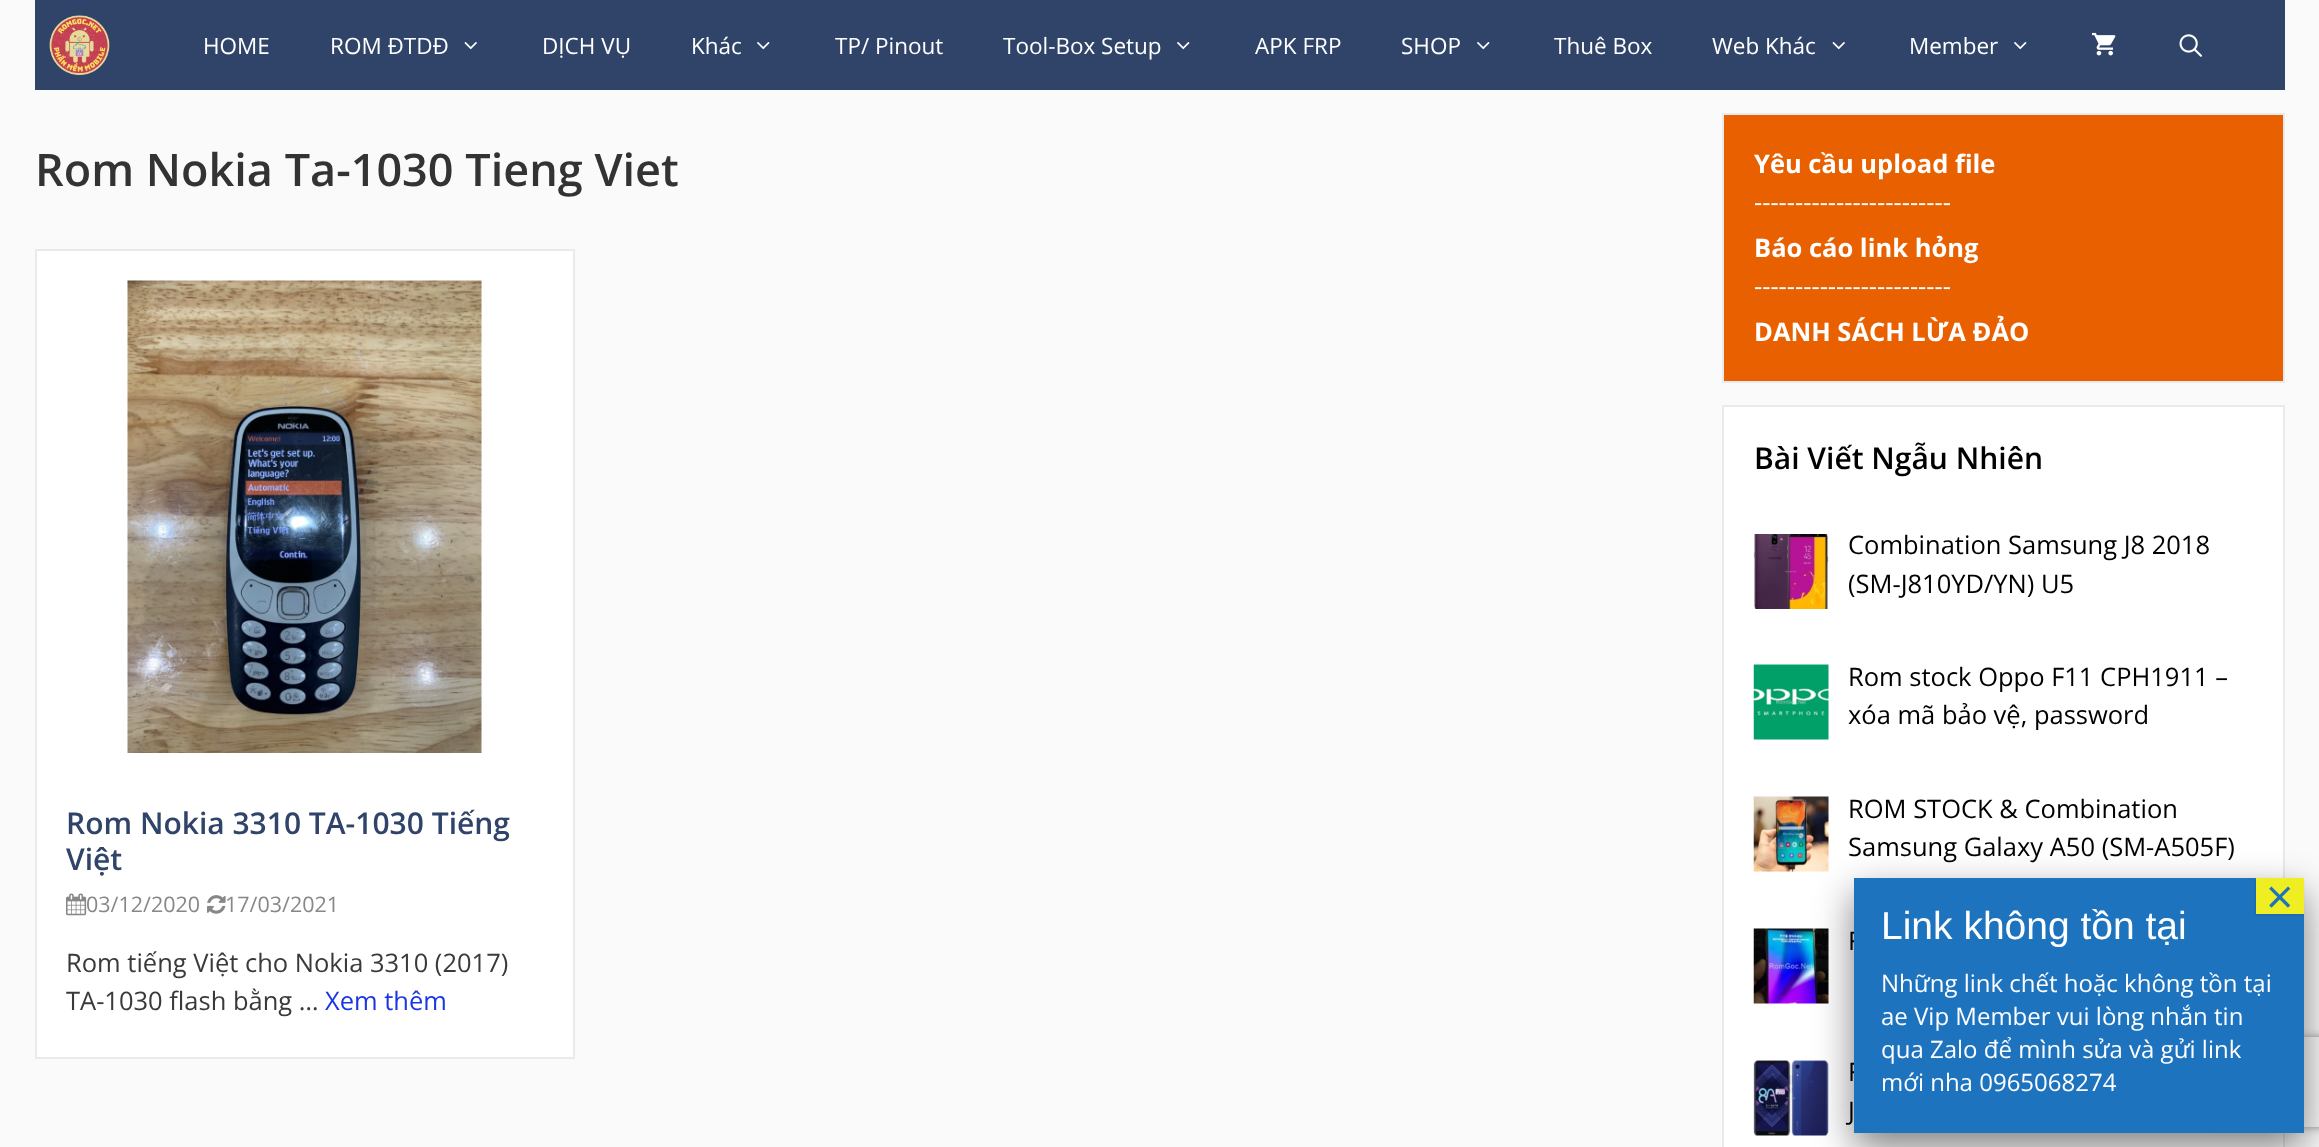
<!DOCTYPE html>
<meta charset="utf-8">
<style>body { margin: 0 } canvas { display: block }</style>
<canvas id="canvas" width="2319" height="1147"></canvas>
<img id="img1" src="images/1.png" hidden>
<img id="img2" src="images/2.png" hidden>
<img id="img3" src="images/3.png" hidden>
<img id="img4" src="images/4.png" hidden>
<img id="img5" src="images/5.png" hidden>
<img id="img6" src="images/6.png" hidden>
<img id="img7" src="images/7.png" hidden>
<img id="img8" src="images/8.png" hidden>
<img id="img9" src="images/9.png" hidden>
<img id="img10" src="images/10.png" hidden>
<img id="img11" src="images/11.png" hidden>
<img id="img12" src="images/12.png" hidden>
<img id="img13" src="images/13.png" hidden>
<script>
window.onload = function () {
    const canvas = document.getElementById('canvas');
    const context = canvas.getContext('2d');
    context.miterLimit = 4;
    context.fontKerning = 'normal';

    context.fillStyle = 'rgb(250, 250, 250)';
    context.fillRect(0, 0, 2319, 1147);
    context.fillStyle = 'rgb(47, 68, 104)';
    context.fillRect(35, 0, 2250, 90);
    context.drawImage(document.getElementById('img1'), 49, 15, 61, 60);
    context.drawImage(document.getElementById('img2'), 464, 42, 13, 8);
    context.drawImage(document.getElementById('img3'), 757, 42, 13, 8);
    context.drawImage(document.getElementById('img3'), 1177, 42, 13, 8);
    context.drawImage(document.getElementById('img3'), 1477, 42, 13, 8);
    context.drawImage(document.getElementById('img2'), 1832, 42, 13, 8);
    context.drawImage(document.getElementById('img3'), 2014, 42, 13, 8);
    context.drawImage(document.getElementById('img4'), 2091, 32, 25, 24);
    context.drawImage(document.getElementById('img5'), 2179, 34, 23, 23);
    context.fillStyle = 'rgb(255, 255, 255)';
    context.beginPath();
    context.rect(36, 250, 538, 808);
    context.fill();
    context.strokeStyle = 'rgb(232, 234, 237)';
    context.lineWidth = 2;
    context.stroke();
    context.drawImage(document.getElementById('img6'), 127, 280, 355, 473);
    context.drawImage(document.getElementById('img7'), 66, 893, 21, 23);
    context.drawImage(document.getElementById('img8'), 207, 895, 19, 19);
    context.fillStyle = 'rgb(232, 96, 0)';
    context.beginPath();
    context.rect(1723, 114, 561, 268);
    context.fill();
    context.stroke();
    context.fillStyle = 'rgb(255, 255, 255)';
    context.beginPath();
    context.rect(1723, 406, 561, 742);
    context.fill();
    context.stroke();
    context.drawImage(document.getElementById('img9'), 1753, 534, 76, 75);
    context.drawImage(document.getElementById('img10'), 1753, 664, 76, 76);
    context.drawImage(document.getElementById('img11'), 1753, 796, 76, 76);
    context.drawImage(document.getElementById('img12'), 1753, 928, 76, 76);
    context.drawImage(document.getElementById('img13'), 1753, 1060, 76, 76);
    context.fillStyle = 'rgba(2, 2, 2, 0.5)';
    context.filter = 'blur(19px)';
    context.beginPath();
    context.rect(1854, 893, 450, 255);
    context.fill();
    context.filter = 'none';
    context.save();
    context.beginPath();
    context.moveTo(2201, 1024);
    context.lineTo(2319, 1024);
    context.lineTo(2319, 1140);
    context.lineTo(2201, 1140);
    context.closePath();
    context.moveTo(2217, 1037);
    context.lineTo(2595, 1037);
    context.bezierCurveTo(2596.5, 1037, 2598, 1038.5, 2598, 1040);
    context.lineTo(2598, 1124);
    context.bezierCurveTo(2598, 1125.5, 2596.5, 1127, 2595, 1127);
    context.lineTo(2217, 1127);
    context.bezierCurveTo(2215.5, 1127, 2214, 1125.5, 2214, 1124);
    context.lineTo(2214, 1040);
    context.bezierCurveTo(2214, 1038.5, 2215.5, 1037, 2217, 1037);
    context.closePath();
    context.clip('evenodd');
    context.fillStyle = 'rgb(128, 128, 128)';
    context.filter = 'blur(4px)';
    context.beginPath();
    context.roundRect(2214, 1037, 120, 90, 3);
    context.fill();
    context.filter = 'none';
    context.restore();
    context.font = '22.5px Open Sans';
    context.fillStyle = 'rgb(255, 255, 255)';
    context.fillText('HOME', 203, 54);
    context.fillText('ROM ĐTDĐ', 330, 54);
    context.fillText('DỊCH VỤ', 542, 54);
    context.fillText('Khác', 691, 54);
    context.fillText('TP/ Pinout', 835, 54);
    context.fillText('Tool-Box Setup', 1003, 54);
    context.fillText('APK FRP', 1255, 54);
    context.fillText('SHOP', 1401, 54);
    context.fillText('Thuê Box', 1554, 54);
    context.fillText('Web Khác', 1712, 54);
    context.fillText('Member', 1909, 54);
    context.font = '600 45px Open Sans';
    context.fillStyle = 'rgb(51, 51, 51)';
    context.fillText('Rom Nokia Ta-1030 Tieng Viet', 35, 186);
    context.font = '600 30px Open Sans';
    context.fillStyle = 'rgb(47, 68, 104)';
    context.fillText('Rom Nokia 3310 TA-1030 Tiếng', 66, 834);
    context.fillText('Việt', 66, 870);
    context.font = '21.5px Open Sans';
    context.fillStyle = 'rgb(135, 135, 135)';
    context.fillText('03/12/2020', 86, 912);
    context.fillText('17/03/2021', 225, 912);
    context.font = '25.5px Open Sans';
    context.fillStyle = 'rgb(58, 58, 58)';
    context.fillText('Rom tiếng Việt cho Nokia 3310 (2017)', 66, 972);
    context.fillText('TA-1030 flash bằng …', 66, 1010);
    context.fillStyle = 'rgb(27, 54, 229)';
    context.fillText('Xem thêm', 325, 1010);
    context.font = 'bold 25.5px Open Sans';
    context.fillStyle = 'rgb(255, 255, 255)';
    context.fillText('Yêu cầu upload file', 1754, 173);
    context.font = '25.5px Open Sans';
    context.fillText('------------------------', 1754, 211);
    context.font = 'bold 25.5px Open Sans';
    context.fillText('Báo cáo link hỏng', 1754, 257);
    context.font = '25.5px Open Sans';
    context.fillText('------------------------', 1754, 295);
    context.font = 'bold 25.5px Open Sans';
    context.fillText('DANH SÁCH LỪA ĐẢO', 1754, 341);
    context.font = '600 30px Open Sans';
    context.fillStyle = 'rgb(0, 0, 0)';
    context.fillText('Bài Viết Ngẫu Nhiên', 1754, 469);
    context.font = '25.5px Open Sans';
    context.fillText('Combination Samsung J8 2018', 1848, 554);
    context.fillText('(SM-J810YD/YN) U5', 1848, 593);
    context.fillText('Rom stock Oppo F11 CPH1911 –', 1848, 686);
    context.fillText('xóa mã bảo vệ, password', 1848, 724);
    context.fillText('ROM STOCK & Combination', 1848, 818);
    context.fillText('Samsung Galaxy A50 (SM-A505F)', 1848, 856);
    context.fillText('F', 1848, 950);
    context.fillText('F', 1848, 1081);
    context.fillText('J', 1848, 1120);
    context.fillStyle = 'rgb(30, 115, 190)';
    context.fillRect(1854, 878, 450, 255);
    context.fillStyle = 'rgba(2, 2, 2, 0.1)';
    context.filter = 'blur(1px)';
    context.beginPath();
    context.rect(2255, 879, 48, 36);
    context.fill();
    context.filter = 'none';
    context.fillStyle = 'rgb(238, 238, 34)';
    context.fillRect(2256, 878, 48, 36);
    context.font = '48px Open Sans';
    context.fillStyle = 'rgb(30, 115, 190)';
    context.fillText('×', 2266, 914);
    context.font = '39px Liberation Sans';
    context.fillStyle = 'rgb(255, 255, 255)';
    context.fillText('Link không tồn tại', 1881, 939);
    context.font = '24px Open Sans';
    context.fillText('Những link chết hoặc không tồn tại', 1881, 992);
    context.fillText('ae Vip Member vui lòng nhắn tin', 1881, 1025);
    context.fillText('qua Zalo để mình sửa và gửi link', 1881, 1058);
    context.fillText('mới nha 0965068274', 1881, 1091);
};
</script>
